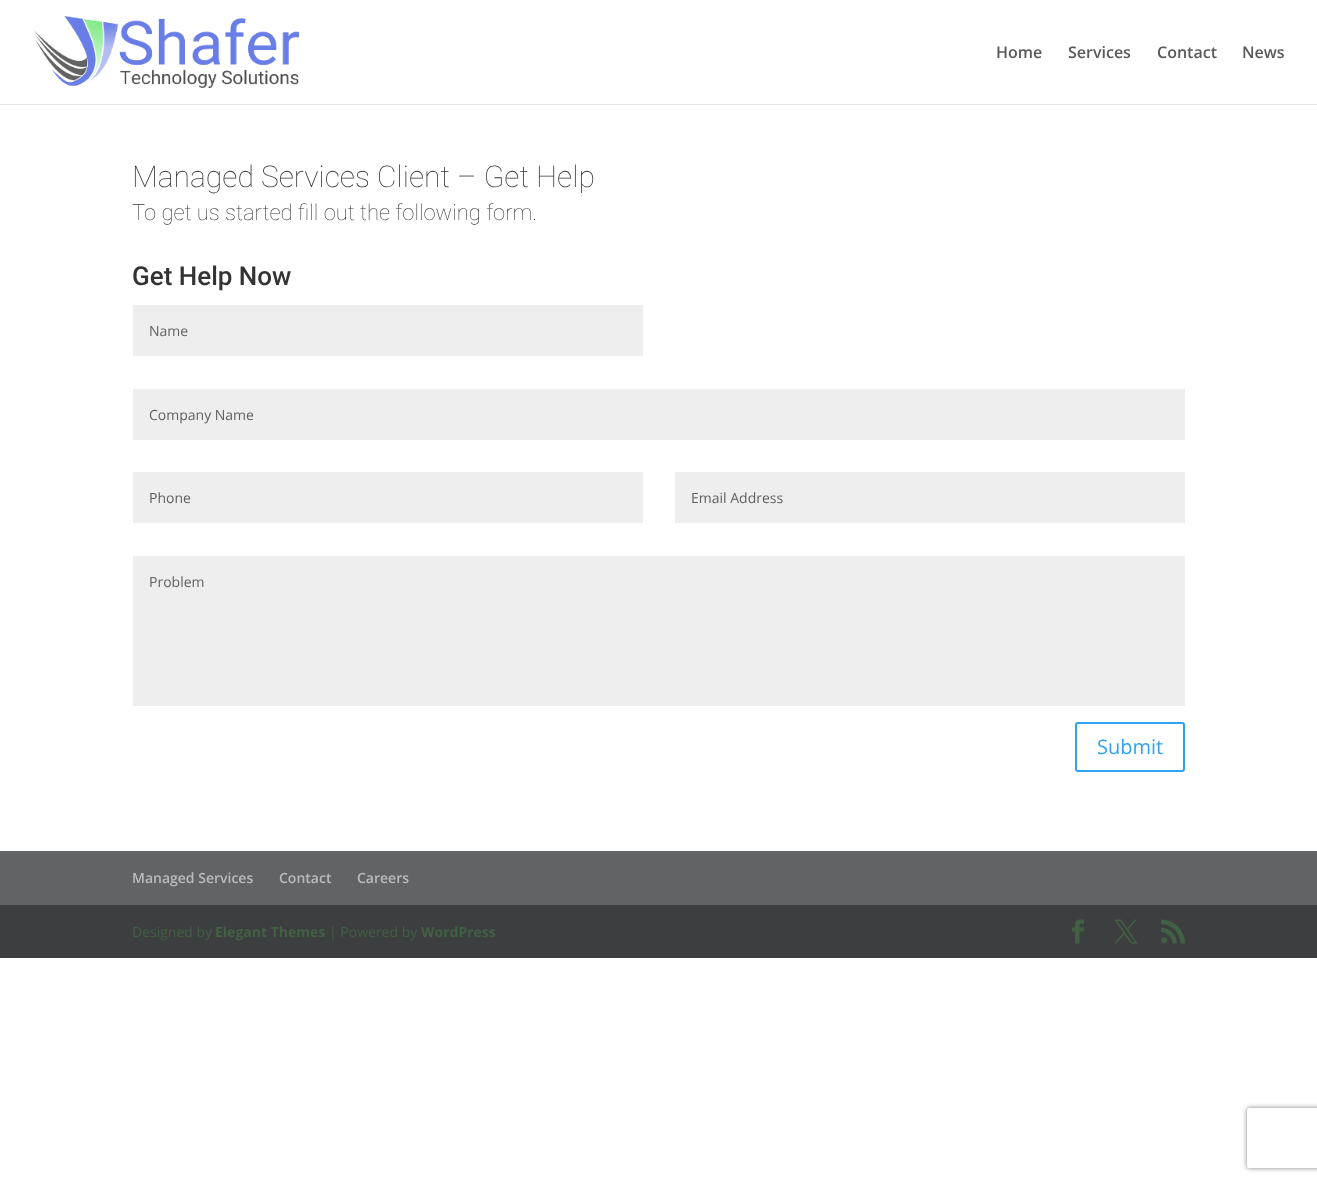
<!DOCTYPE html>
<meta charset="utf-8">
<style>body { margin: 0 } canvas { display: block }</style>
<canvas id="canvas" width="1317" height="1182"></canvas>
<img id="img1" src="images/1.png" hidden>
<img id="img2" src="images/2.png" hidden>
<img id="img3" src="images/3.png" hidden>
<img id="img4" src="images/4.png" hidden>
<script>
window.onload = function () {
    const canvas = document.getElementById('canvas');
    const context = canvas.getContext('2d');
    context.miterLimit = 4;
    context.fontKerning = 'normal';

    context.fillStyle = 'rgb(255, 255, 255)';
    context.fillRect(0, 0, 1317, 1182);
    context.fillStyle = 'rgb(230, 230, 230)';
    context.fillRect(0, 104, 1317, 1);
    context.drawImage(document.getElementById('img1'), 34, 16, 265, 72);
    context.fillStyle = 'rgb(238, 238, 238)';
    context.fillRect(133, 305, 510, 51);
    context.fillRect(133, 389, 1052, 51);
    context.fillRect(133, 472, 510, 51);
    context.fillRect(675, 472, 510, 51);
    context.fillRect(133, 556, 1052, 150);
    context.beginPath();
    context.roundRect(1076, 723, 108, 48, 2);
    context.strokeStyle = 'rgb(46, 163, 242)';
    context.lineWidth = 2;
    context.stroke();
    context.fillStyle = 'rgb(98, 99, 100)';
    context.fillRect(0, 851, 1317, 54);
    context.fillStyle = 'rgb(61, 62, 63)';
    context.fillRect(0, 905, 1317, 53);
    context.drawImage(document.getElementById('img2'), 1072, 919, 12, 25);
    context.drawImage(document.getElementById('img3'), 1114, 919, 24, 25);
    context.drawImage(document.getElementById('img4'), 1161, 919, 24, 25);
    context.save();
    context.beginPath();
    context.moveTo(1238, 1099);
    context.lineTo(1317, 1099);
    context.lineTo(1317, 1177);
    context.lineTo(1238, 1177);
    context.closePath();
    context.moveTo(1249, 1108);
    context.lineTo(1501, 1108);
    context.bezierCurveTo(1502, 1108, 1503, 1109, 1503, 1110);
    context.lineTo(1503, 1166);
    context.bezierCurveTo(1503, 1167, 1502, 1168, 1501, 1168);
    context.lineTo(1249, 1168);
    context.bezierCurveTo(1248, 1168, 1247, 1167, 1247, 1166);
    context.lineTo(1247, 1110);
    context.bezierCurveTo(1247, 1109, 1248, 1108, 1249, 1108);
    context.closePath();
    context.clip('evenodd');
    context.fillStyle = 'rgb(128, 128, 128)';
    context.filter = 'blur(2.5px)';
    context.beginPath();
    context.roundRect(1247, 1108, 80, 60, 2);
    context.fill();
    context.filter = 'none';
    context.restore();
    context.font = '600 16px Open Sans';
    context.fillStyle = 'rgb(88, 89, 90)';
    context.fillText('Home', 996, 58);
    context.fillText('Services', 1068, 58);
    context.fillText('Contact', 1157, 58);
    context.fillText('News', 1242, 58);
    context.font = '100 30px Roboto';
    context.fillStyle = 'rgb(51, 51, 51)';
    context.fillText('Managed Services Client – Get Help', 132, 187);
    context.font = '100 22px Roboto';
    context.fillText('To get us started fill out the following form.', 132, 220);
    context.font = '500 26px Roboto';
    context.fillText('Get Help Now', 132, 285);
    context.font = '14px Open Sans';
    context.fillStyle = 'rgb(96, 96, 96)';
    context.fillText('Name', 149, 336);
    context.fillText('Company Name', 149, 420);
    context.fillText('Phone', 149, 503);
    context.fillText('Email Address', 691, 503);
    context.fillText('Problem', 149, 587);
    context.font = '20px Open Sans';
    context.fillStyle = 'rgb(46, 163, 242)';
    context.fillText('Submit', 1097, 754);
    context.font = '600 14px Open Sans';
    context.fillStyle = 'rgb(187, 187, 187)';
    context.fillText('Managed Services', 132, 883);
    context.fillText('Contact', 279, 883);
    context.fillText('Careers', 357, 883);
    context.font = '14px Open Sans';
    context.fillStyle = 'rgb(65, 96, 68)';
    context.fillText('Designed by', 132, 937);
    context.font = 'bold 14px Open Sans';
    context.fillText('Elegant Themes', 215, 937);
    context.font = '14px Open Sans';
    context.fillText('| Powered by', 329, 937);
    context.font = 'bold 14px Open Sans';
    context.fillText('WordPress', 421, 937);
};
</script>
